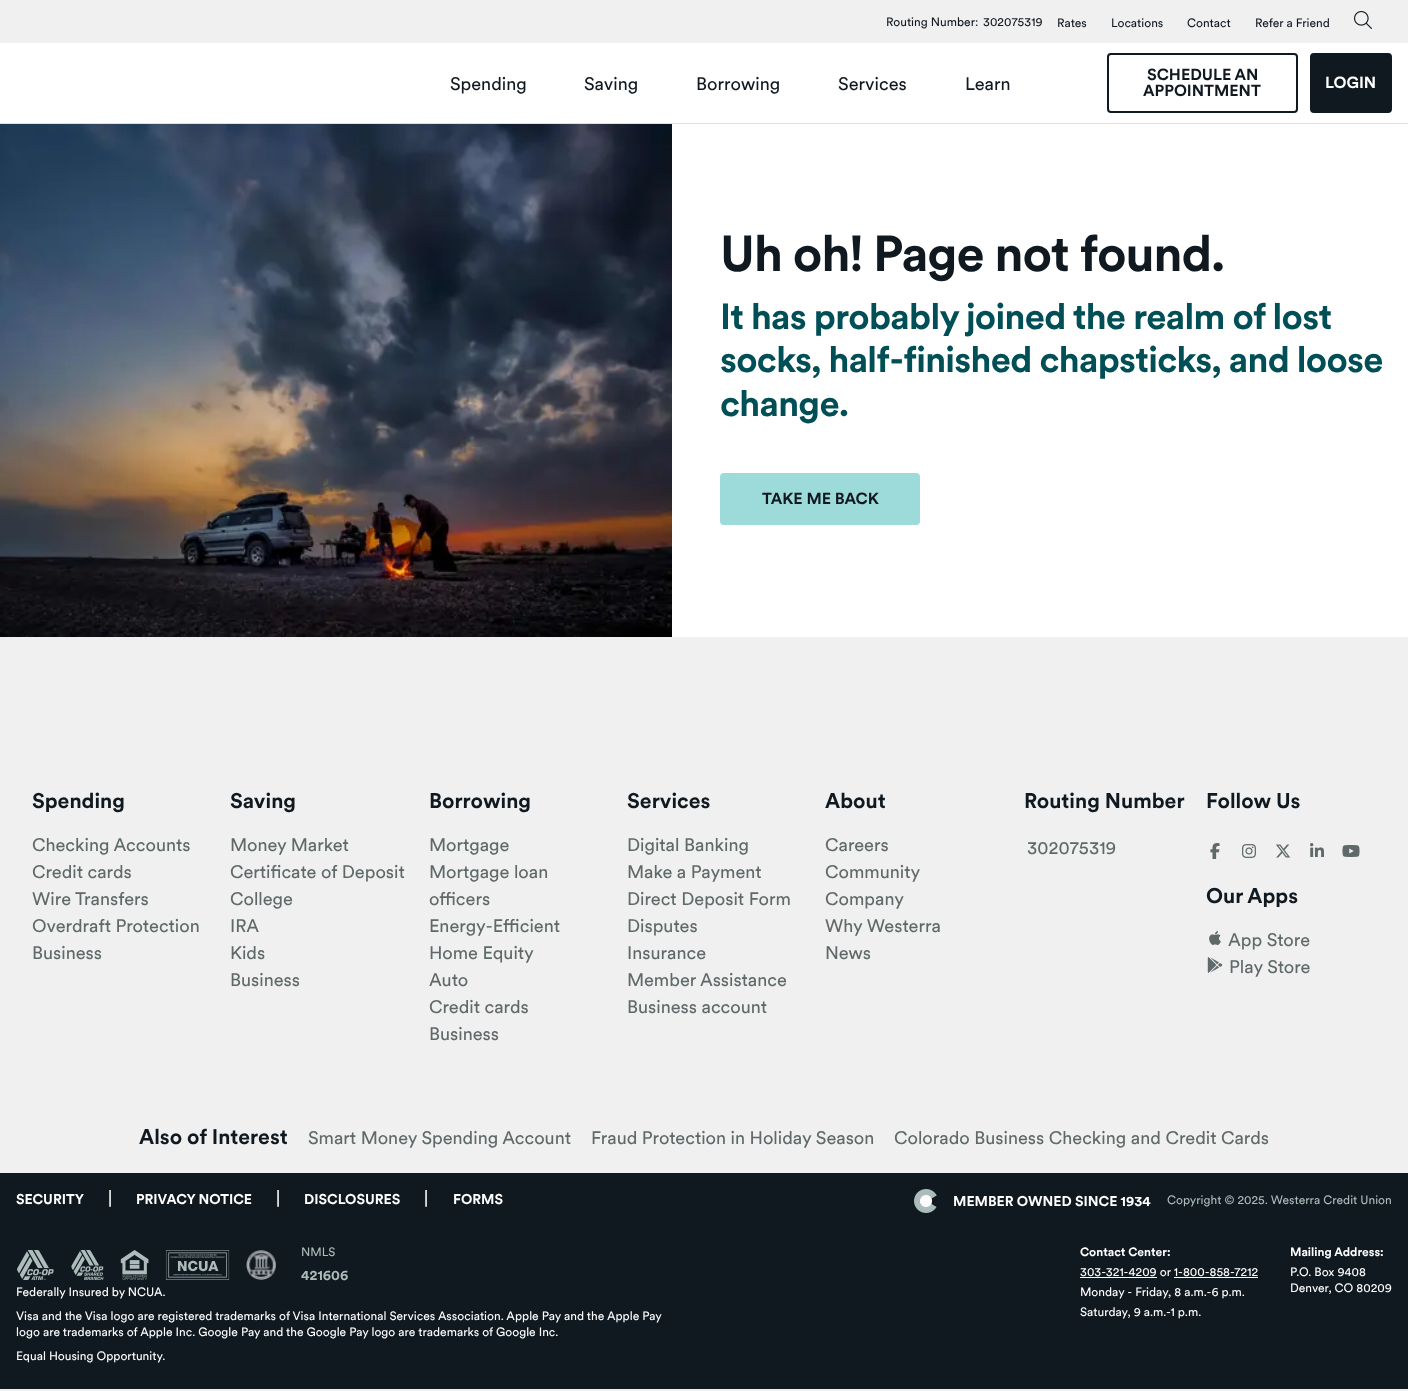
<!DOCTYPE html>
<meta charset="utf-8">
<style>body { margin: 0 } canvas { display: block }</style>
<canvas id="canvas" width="1408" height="1391"></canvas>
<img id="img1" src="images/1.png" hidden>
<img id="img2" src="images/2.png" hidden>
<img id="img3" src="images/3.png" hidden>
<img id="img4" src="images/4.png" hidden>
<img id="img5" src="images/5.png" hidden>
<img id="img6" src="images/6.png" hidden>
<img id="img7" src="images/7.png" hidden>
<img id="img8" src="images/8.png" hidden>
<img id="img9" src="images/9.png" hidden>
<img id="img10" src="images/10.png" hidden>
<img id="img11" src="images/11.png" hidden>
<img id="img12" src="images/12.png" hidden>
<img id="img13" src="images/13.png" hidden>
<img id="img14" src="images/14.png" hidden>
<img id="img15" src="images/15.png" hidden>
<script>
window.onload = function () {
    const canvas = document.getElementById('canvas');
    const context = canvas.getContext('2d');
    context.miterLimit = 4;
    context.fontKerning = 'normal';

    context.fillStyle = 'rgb(240, 240, 240)';
    context.fillRect(0, 0, 1408, 1391);
    context.fillStyle = 'rgb(255, 255, 255)';
    context.fillRect(0, 43, 1408, 594);
    context.fillStyle = 'rgb(224, 224, 224)';
    context.fillRect(0, 123, 1408, 1);
    context.drawImage(document.getElementById('img1'), 1354, 11, 18, 18);
    context.beginPath();
    context.roundRect(1108, 54, 189, 58, 3);
    context.strokeStyle = 'rgb(16, 24, 32)';
    context.lineWidth = 2;
    context.stroke();
    context.fillStyle = 'rgb(16, 24, 32)';
    context.beginPath();
    context.roundRect(1311, 54, 80, 58, 3);
    context.fill();
    context.stroke();
    context.drawImage(document.getElementById('img2'), 0, 124, 672, 513);
    context.fillStyle = 'rgb(156, 219, 217)';
    context.beginPath();
    context.roundRect(721, 474, 198, 50, 3);
    context.fill();
    context.strokeStyle = 'rgb(156, 219, 217)';
    context.stroke();
    context.drawImage(document.getElementById('img3'), 1210, 843, 10, 16);
    context.drawImage(document.getElementById('img4'), 1242, 844, 14, 14);
    context.drawImage(document.getElementById('img5'), 1276, 844, 15, 14);
    context.drawImage(document.getElementById('img6'), 1310, 843, 14, 14);
    context.drawImage(document.getElementById('img7'), 1342, 845, 18, 12);
    context.drawImage(document.getElementById('img8'), 1209, 931, 12, 14);
    context.drawImage(document.getElementById('img9'), 1207, 957, 16, 16);
    context.fillStyle = 'rgb(16, 24, 32)';
    context.fillRect(0, 1173, 1408, 216);
    context.drawImage(document.getElementById('img10'), 914, 1189, 23, 24);
    context.drawImage(document.getElementById('img11'), 17, 1250, 37, 30);
    context.drawImage(document.getElementById('img12'), 71, 1250, 33, 30);
    context.drawImage(document.getElementById('img13'), 120, 1250, 29, 30);
    context.drawImage(document.getElementById('img14'), 165, 1250, 65, 30);
    context.drawImage(document.getElementById('img15'), 246, 1250, 30, 30);
    context.fillStyle = 'rgb(255, 255, 255)';
    context.fillRect(1080, 1277, 77, 1);
    context.fillRect(1174, 1277, 84, 1);
    context.font = '12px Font';
    context.fillStyle = 'rgb(16, 24, 32)';
    context.fillText('Routing Number:', 886, 26);
    context.fillText('302075319', 983, 26);
    context.fillText('Rates', 1057, 27);
    context.fillText('Locations', 1111, 27);
    context.fillText('Contact', 1187, 27);
    context.fillText('Refer a Friend', 1255, 27);
    context.font = '18px Font';
    context.fillText('Spending', 450, 90);
    context.fillText('Saving', 584, 90);
    context.fillText('Borrowing', 696, 90);
    context.fillText('Services', 838, 90);
    context.fillText('Learn', 965, 90);
    context.font = 'bold 16px Font';
    context.fillText('SCHEDULE AN', 1147, 80);
    context.fillText('APPOINTMENT', 1143, 96);
    context.fillStyle = 'rgb(255, 255, 255)';
    context.fillText('LOGIN', 1325, 88);
    context.letterSpacing = '-1px';
    context.font = 'bold 50px Font';
    context.fillStyle = 'rgb(16, 24, 32)';
    context.fillText('Uh oh! Page not found.', 720, 271);
    context.letterSpacing = '-0.7px';
    context.font = 'bold 36px Font';
    context.fillStyle = 'rgb(0, 79, 86)';
    context.fillText('It has probably joined the realm of lost', 720, 329);
    context.fillText('socks, half-finished chapsticks, and loose', 720, 372);
    context.fillText('change.', 720, 416);
    context.letterSpacing = '0px';
    context.font = 'bold 16px Font';
    context.fillStyle = 'rgb(16, 24, 32)';
    context.fillText('TAKE ME BACK', 762, 504);
    context.font = 'bold 21px Font';
    context.fillText('Spending', 32, 808);
    context.font = '18px Font';
    context.fillStyle = 'rgb(96, 105, 105)';
    context.fillText('Checking Accounts', 32, 851);
    context.fillText('Credit cards', 32, 878);
    context.fillText('Wire Transfers', 32, 905);
    context.fillText('Overdraft Protection', 32, 932);
    context.fillText('Business', 32, 959);
    context.font = 'bold 21px Font';
    context.fillStyle = 'rgb(16, 24, 32)';
    context.fillText('Saving', 230, 808);
    context.font = '18px Font';
    context.fillStyle = 'rgb(96, 105, 105)';
    context.fillText('Money Market', 230, 851);
    context.fillText('Certificate of Deposit', 230, 878);
    context.fillText('College', 230, 905);
    context.fillText('IRA', 230, 932);
    context.fillText('Kids', 230, 959);
    context.fillText('Business', 230, 986);
    context.font = 'bold 21px Font';
    context.fillStyle = 'rgb(16, 24, 32)';
    context.fillText('Borrowing', 429, 808);
    context.font = '18px Font';
    context.fillStyle = 'rgb(96, 105, 105)';
    context.fillText('Mortgage', 429, 851);
    context.fillText('Mortgage loan', 429, 878);
    context.fillText('officers', 429, 905);
    context.fillText('Energy-Efficient', 429, 932);
    context.fillText('Home Equity', 429, 959);
    context.fillText('Auto', 429, 986);
    context.fillText('Credit cards', 429, 1013);
    context.fillText('Business', 429, 1040);
    context.font = 'bold 21px Font';
    context.fillStyle = 'rgb(16, 24, 32)';
    context.fillText('Services', 627, 808);
    context.font = '18px Font';
    context.fillStyle = 'rgb(96, 105, 105)';
    context.fillText('Digital Banking', 627, 851);
    context.fillText('Make a Payment', 627, 878);
    context.fillText('Direct Deposit Form', 627, 905);
    context.fillText('Disputes', 627, 932);
    context.fillText('Insurance', 627, 959);
    context.fillText('Member Assistance', 627, 986);
    context.fillText('Business account', 627, 1013);
    context.font = 'bold 21px Font';
    context.fillStyle = 'rgb(16, 24, 32)';
    context.fillText('About', 825, 808);
    context.font = '18px Font';
    context.fillStyle = 'rgb(96, 105, 105)';
    context.fillText('Careers', 825, 851);
    context.fillText('Community', 825, 878);
    context.fillText('Company', 825, 905);
    context.fillText('Why Westerra', 825, 932);
    context.fillText('News', 825, 959);
    context.font = 'bold 21px Font';
    context.fillStyle = 'rgb(16, 24, 32)';
    context.fillText('Routing Number', 1024, 808);
    context.font = '18px Font';
    context.fillStyle = 'rgb(96, 105, 105)';
    context.fillText('302075319', 1027, 854);
    context.font = 'bold 21px Font';
    context.fillStyle = 'rgb(16, 24, 32)';
    context.fillText('Follow Us', 1206, 808);
    context.fillText('Our Apps', 1206, 903);
    context.font = '18px Font';
    context.fillStyle = 'rgb(96, 105, 105)';
    context.fillText('App Store', 1228, 946);
    context.fillText('Play Store', 1229, 973);
    context.font = 'bold 21px Font';
    context.fillStyle = 'rgb(16, 24, 32)';
    context.fillText('Also of Interest', 139, 1144);
    context.font = '18px Font';
    context.fillStyle = 'rgb(96, 105, 105)';
    context.fillText('Smart Money Spending Account', 308, 1144);
    context.fillText('Fraud Protection in Holiday Season', 591, 1144);
    context.fillText('Colorado Business Checking and Credit Cards', 894, 1144);
    context.font = 'bold 14px Font';
    context.fillStyle = 'rgb(255, 255, 255)';
    context.fillText('SECURITY', 16, 1204);
    context.font = '18px Font';
    context.fillText('|', 108, 1204);
    context.font = 'bold 14px Font';
    context.fillText('PRIVACY NOTICE', 136, 1204);
    context.font = '18px Font';
    context.fillText('|', 276, 1204);
    context.font = 'bold 14px Font';
    context.fillText('DISCLOSURES', 304, 1204);
    context.font = '18px Font';
    context.fillText('|', 424, 1204);
    context.font = 'bold 14px Font';
    context.fillText('FORMS', 453, 1204);
    context.fillText('MEMBER OWNED SINCE 1934', 953, 1206);
    context.font = '12px Font';
    context.fillStyle = 'rgb(172, 188, 187)';
    context.fillText('Copyright © 2025. Westerra Credit Union', 1167, 1204);
    context.fillText('NMLS', 301, 1256);
    context.font = 'bold 14px Font';
    context.fillText('421606', 301, 1280);
    context.font = '12px Font';
    context.fillStyle = 'rgb(255, 255, 255)';
    context.fillText('Federally Insured by NCUA.', 16, 1296);
    context.fillText('Visa and the Visa logo are registered trademarks of Visa International Services Association. Apple Pay and the Apple Pay', 16, 1320);
    context.fillText('logo are trademarks of Apple Inc. Google Pay and the Google Pay logo are trademarks of Google Inc.', 16, 1336);
    context.fillText('Equal Housing Opportunity.', 16, 1360);
    context.font = 'bold 12px Font';
    context.fillText('Contact Center:', 1080, 1256);
    context.font = '12px Font';
    context.fillText('303-321-4209 or 1-800-858-7212', 1080, 1276);
    context.fillText('Monday - Friday, 8 a.m.-6 p.m.', 1080, 1296);
    context.fillText('Saturday, 9 a.m.-1 p.m.', 1080, 1316);
    context.font = 'bold 12px Font';
    context.fillText('Mailing Address:', 1290, 1256);
    context.font = '12px Font';
    context.fillText('P.O. Box 9408', 1290, 1276);
    context.fillText('Denver, CO 80209', 1290, 1292);
};
</script>
